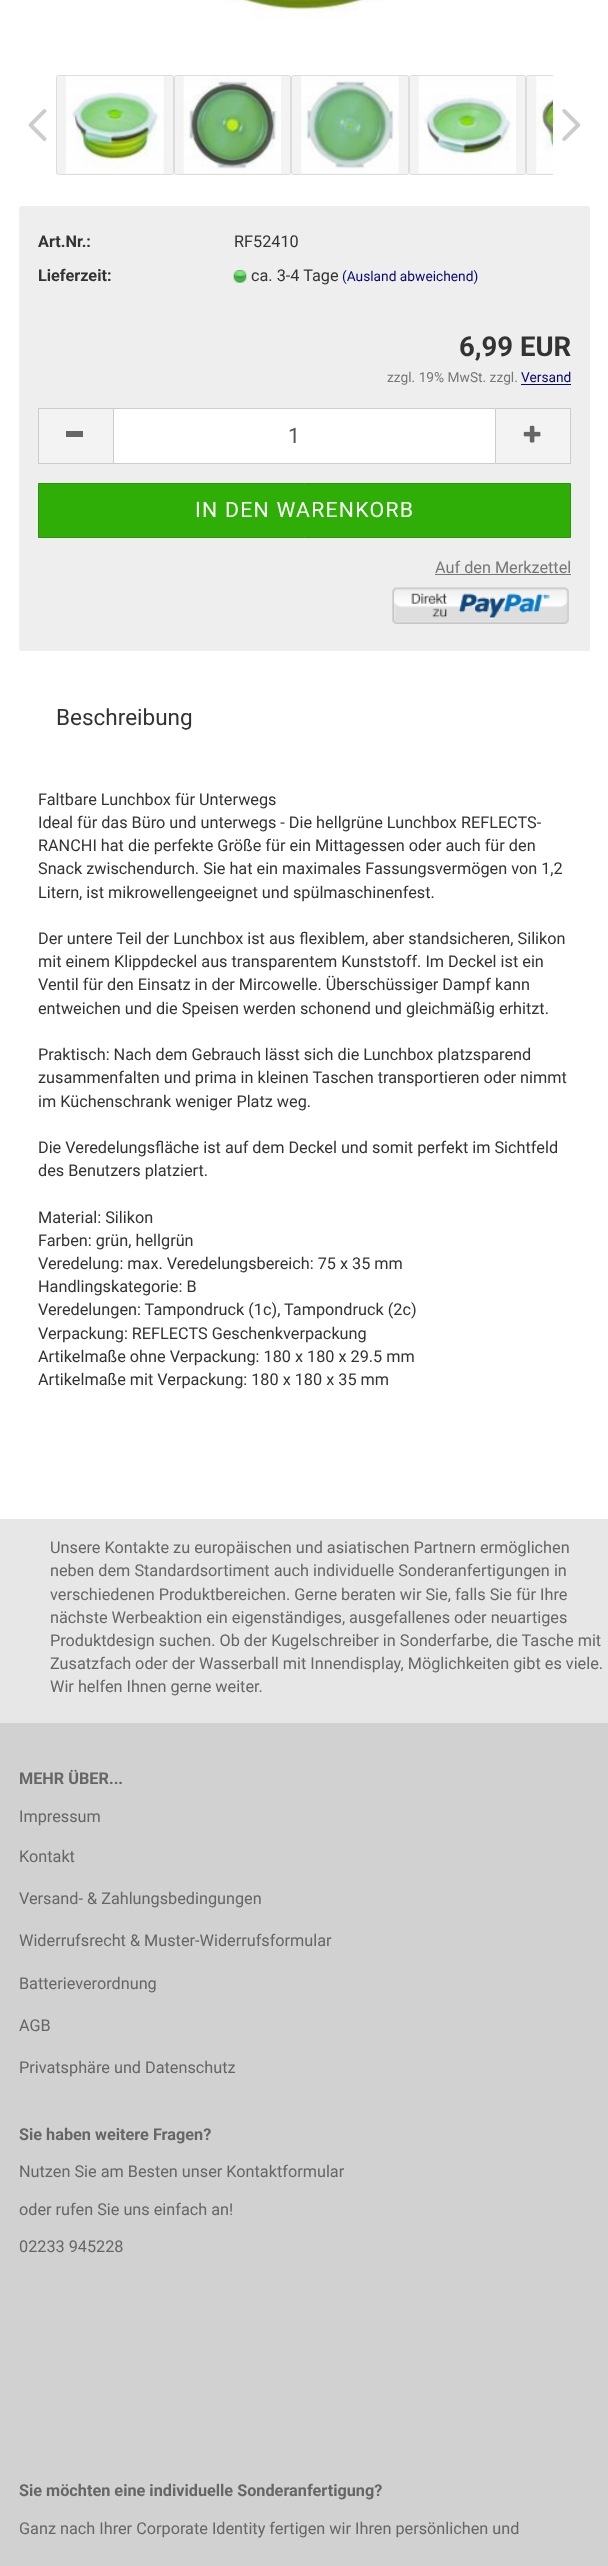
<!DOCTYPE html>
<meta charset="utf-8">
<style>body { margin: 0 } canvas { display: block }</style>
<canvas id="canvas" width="608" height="2566"></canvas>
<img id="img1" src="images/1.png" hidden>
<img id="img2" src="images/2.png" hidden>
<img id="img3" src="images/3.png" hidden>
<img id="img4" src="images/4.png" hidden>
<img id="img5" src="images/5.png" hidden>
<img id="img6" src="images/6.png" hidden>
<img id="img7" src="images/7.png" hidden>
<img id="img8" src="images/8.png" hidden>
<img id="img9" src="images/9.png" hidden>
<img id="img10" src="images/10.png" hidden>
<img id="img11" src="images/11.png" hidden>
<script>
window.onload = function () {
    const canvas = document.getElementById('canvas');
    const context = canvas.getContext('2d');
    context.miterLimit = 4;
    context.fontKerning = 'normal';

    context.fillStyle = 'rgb(255, 255, 255)';
    context.fillRect(0, 0, 608, 2566);
    context.drawImage(document.getElementById('img1'), 220, 0, 165, 20);
    context.drawImage(document.getElementById('img2'), 28, 109, 19, 32);
    context.fillStyle = 'rgb(243, 243, 243)';
    context.beginPath();
    context.roundRect(56.5, 75.5, 117, 99, 2);
    context.fill();
    context.strokeStyle = 'rgb(221, 221, 221)';
    context.stroke();
    context.drawImage(document.getElementById('img3'), 66, 76, 98, 98);
    context.beginPath();
    context.roundRect(174.5, 75.5, 116, 99, 2);
    context.fill();
    context.stroke();
    context.drawImage(document.getElementById('img4'), 183, 76, 98, 98);
    context.beginPath();
    context.roundRect(291.5, 75.5, 117, 99, 2);
    context.fill();
    context.stroke();
    context.drawImage(document.getElementById('img5'), 301, 76, 98, 98);
    context.beginPath();
    context.roundRect(409.5, 75.5, 116, 99, 2);
    context.fill();
    context.stroke();
    context.drawImage(document.getElementById('img6'), 418, 76, 98, 98);
    context.beginPath();
    context.roundRect(526, 75, 27, 100, [2.5, 0, 0, 2.5]);
    context.fill();
    context.save();
    context.beginPath();
    context.rect(56, 75, 497, 100);
    context.clip();
    context.beginPath();
    context.roundRect(526.5, 75.5, 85, 99, 2);
    context.stroke();
    context.restore();
    context.drawImage(document.getElementById('img7'), 536, 76, 17, 98);
    context.drawImage(document.getElementById('img8'), 562, 109, 19, 32);
    context.fillStyle = 'rgb(238, 238, 238)';
    context.beginPath();
    context.roundRect(19, 206, 571, 445, 2.5);
    context.fill();
    context.drawImage(document.getElementById('img9'), 233, 270, 14, 13);
    context.fillStyle = 'rgb(6, 8, 109)';
    context.fillRect(521, 384, 50, 1);
    context.fillStyle = 'rgb(243, 243, 243)';
    context.fillRect(39, 409, 74, 54);
    context.fillStyle = 'rgb(204, 204, 204)';
    context.fillRect(38, 408, 75, 1);
    context.fillRect(38, 463, 75, 1);
    context.fillRect(38, 408, 1, 56);
    context.fillStyle = 'rgb(102, 102, 102)';
    context.fillRect(66, 431, 17, 6);
    context.fillStyle = 'rgb(255, 255, 255)';
    context.beginPath();
    context.rect(113.5, 408.5, 382, 55);
    context.fill();
    context.strokeStyle = 'rgb(204, 204, 204)';
    context.stroke();
    context.fillStyle = 'rgb(243, 243, 243)';
    context.fillRect(496, 409, 74, 54);
    context.fillStyle = 'rgb(204, 204, 204)';
    context.fillRect(496, 408, 75, 1);
    context.fillRect(570, 408, 1, 56);
    context.fillRect(496, 463, 75, 1);
    context.drawImage(document.getElementById('img10'), 523, 425, 18, 18);
    context.fillStyle = 'rgb(46, 174, 6)';
    context.beginPath();
    context.rect(38.5, 483.5, 532, 54);
    context.fill();
    context.strokeStyle = 'rgb(39, 149, 5)';
    context.stroke();
    context.fillStyle = 'rgb(119, 119, 119)';
    context.fillRect(435, 574, 136, 1);
    context.drawImage(document.getElementById('img11'), 392, 587, 177, 37);
    context.fillStyle = 'rgb(209, 209, 209)';
    context.fillRect(0, 1723, 608, 843);
    context.fillStyle = 'rgb(231, 231, 231)';
    context.fillRect(0, 1519, 608, 204);
    context.font = 'bold 16.25px Roboto';
    context.fillStyle = 'rgb(51, 51, 51)';
    context.fillText('Art.Nr.:', 38, 247);
    context.font = '16.25px Roboto';
    context.fillText('RF52410', 234, 247);
    context.font = 'bold 16.25px Roboto';
    context.fillText('Lieferzeit:', 38, 281);
    context.font = '16.25px Roboto';
    context.fillText('ca. 3-4 Tage', 251, 281);
    context.font = '13.75px Roboto';
    context.fillStyle = 'rgb(6, 8, 109)';
    context.fillText('(Ausland abweichend)', 342, 281);
    context.font = 'bold 27.5px Roboto';
    context.fillStyle = 'rgb(51, 51, 51)';
    context.fillText('6,99 EUR', 459, 356);
    context.font = '13.75px Roboto';
    context.fillStyle = 'rgb(119, 119, 119)';
    context.fillText('zzgl. 19% MwSt. zzgl.', 387, 382);
    context.fillStyle = 'rgb(6, 8, 109)';
    context.fillText('Versand', 521, 382);
    context.font = '21.25px Roboto';
    context.fillStyle = 'rgb(85, 85, 85)';
    context.fillText('1', 288, 443);
    context.letterSpacing = '1.25px';
    context.fillStyle = 'rgb(255, 255, 255)';
    context.fillText('IN DEN WARENKORB', 195, 517);
    context.letterSpacing = '0px';
    context.font = '16.25px Roboto';
    context.fillStyle = 'rgb(119, 119, 119)';
    context.fillText('Auf den Merkzettel', 435, 573);
    context.font = '22.5px Roboto';
    context.fillStyle = 'rgb(51, 51, 51)';
    context.fillText('Beschreibung', 56, 725);
    context.font = '16.25px Roboto';
    context.fillText('Faltbare Lunchbox für Unterwegs', 38, 805);
    context.fillText('Ideal für das Büro und unterwegs - Die hellgrüne Lunchbox REFLECTS-', 38, 828);
    context.fillText('RANCHI hat die perfekte Größe für ein Mittagessen oder auch für den', 38, 851);
    context.fillText('Snack zwischendurch. Sie hat ein maximales Fassungsvermögen von 1,2', 38, 874);
    context.fillText('Litern, ist mikrowellengeeignet und spülmaschinenfest.', 38, 898);
    context.fillText('Der untere Teil der Lunchbox ist aus flexiblem, aber standsicheren, Silikon', 38, 944);
    context.fillText('mit einem Klippdeckel aus transparentem Kunststoff. Im Deckel ist ein', 38, 967);
    context.fillText('Ventil für den Einsatz in der Mircowelle. Überschüssiger Dampf kann', 38, 990);
    context.fillText('entweichen und die Speisen werden schonend und gleichmäßig erhitzt.', 38, 1014);
    context.fillText('Praktisch: Nach dem Gebrauch lässt sich die Lunchbox platzsparend', 38, 1060);
    context.fillText('zusammenfalten und prima in kleinen Taschen transportieren oder nimmt', 38, 1083);
    context.fillText('im Küchenschrank weniger Platz weg.', 38, 1107);
    context.fillText('Die Veredelungsfläche ist auf dem Deckel und somit perfekt im Sichtfeld', 38, 1153);
    context.fillText('des Benutzers platziert.', 38, 1176);
    context.fillText('Material: Silikon', 38, 1223);
    context.fillText('Farben: grün, hellgrün', 38, 1246);
    context.fillText('Veredelung: max. Veredelungsbereich: 75 x 35 mm', 38, 1269);
    context.fillText('Handlingskategorie: B', 38, 1292);
    context.fillText('Veredelungen: Tampondruck (1c), Tampondruck (2c)', 38, 1315);
    context.fillText('Verpackung: REFLECTS Geschenkverpackung', 38, 1339);
    context.fillText('Artikelmaße ohne Verpackung: 180 x 180 x 29.5 mm', 38, 1362);
    context.fillText('Artikelmaße mit Verpackung: 180 x 180 x 35 mm', 38, 1385);
    context.fillStyle = 'rgb(102, 102, 102)';
    context.fillText('Unsere Kontakte zu europäischen und asiatischen Partnern ermöglichen', 50, 1553);
    context.fillText('neben dem Standardsortiment auch individuelle Sonderanfertigungen in', 50, 1576);
    context.fillText('verschiedenen Produktbereichen. Gerne beraten wir Sie, falls Sie für Ihre', 50, 1600);
    context.fillText('nächste Werbeaktion ein eigenständiges, ausgefallenes oder neuartiges', 50, 1623);
    context.fillText('Produktdesign suchen. Ob der Kugelschreiber in Sonderfarbe, die Tasche mit', 50, 1646);
    context.fillText('Zusatzfach oder der Wasserball mit Innendisplay, Möglichkeiten gibt es viele.', 50, 1669);
    context.fillText('Wir helfen Ihnen gerne weiter.', 50, 1692);
    context.font = 'bold 16.25px Roboto';
    context.fillText('MEHR ÜBER...', 19, 1784);
    context.font = '16.25px Roboto';
    context.fillText('Impressum', 19, 1822);
    context.fillText('Kontakt', 19, 1862);
    context.fillText('Versand- & Zahlungsbedingungen', 19, 1904);
    context.fillText('Widerrufsrecht & Muster-Widerrufsformular', 19, 1946);
    context.fillText('Batterieverordnung', 19, 1989);
    context.fillText('AGB', 19, 2031);
    context.fillText('Privatsphäre und Datenschutz', 19, 2073);
    context.font = 'bold 16.25px Roboto';
    context.fillText('Sie haben weitere Fragen?', 19, 2140);
    context.font = '16.25px Roboto';
    context.fillText('Nutzen Sie am Besten unser Kontaktformular', 19, 2177);
    context.fillText('oder rufen Sie uns einfach an!', 19, 2215);
    context.fillText('02233 945228', 19, 2252);
    context.font = 'bold 16.25px Roboto';
    context.fillText('Sie möchten eine individuelle Sonderanfertigung?', 19, 2496);
    context.font = '16.25px Roboto';
    context.fillText('Ganz nach Ihrer Corporate Identity fertigen wir Ihren persönlichen und', 19, 2534);
};
</script>
